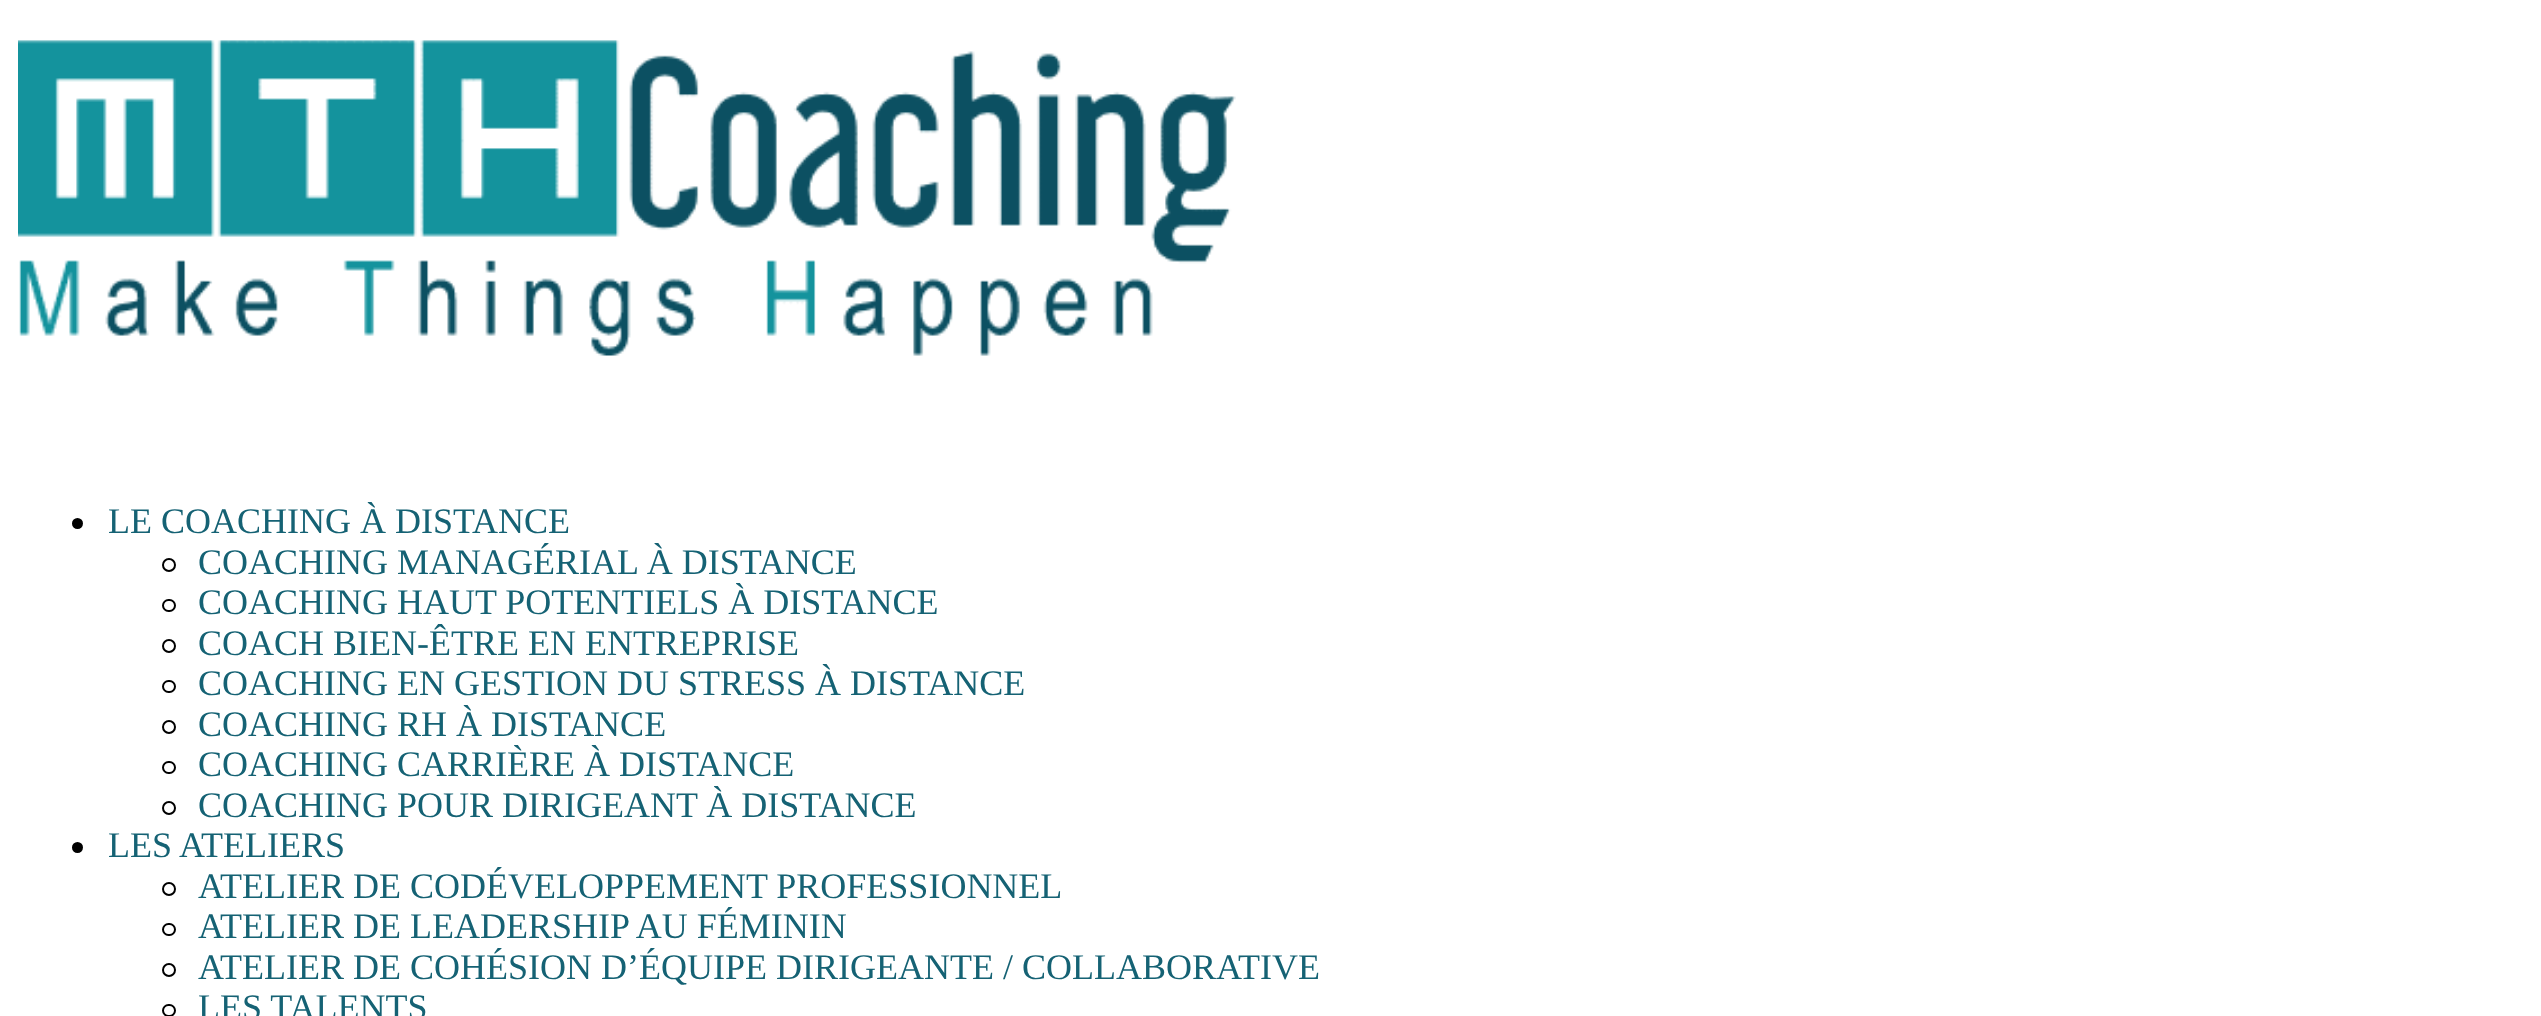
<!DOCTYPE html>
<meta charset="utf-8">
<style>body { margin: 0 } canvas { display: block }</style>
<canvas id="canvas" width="2541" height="1016"></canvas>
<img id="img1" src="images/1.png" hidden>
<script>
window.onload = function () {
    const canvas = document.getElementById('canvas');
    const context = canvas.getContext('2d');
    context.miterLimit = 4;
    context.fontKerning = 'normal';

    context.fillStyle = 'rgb(255, 255, 255)';
    context.fillRect(0, 0, 2541, 1016);
    context.drawImage(document.getElementById('img1'), 18, 40, 1218, 316);
    context.fillStyle = 'rgb(0, 0, 0)';
    context.beginPath();
    context.arc(77.5, 523.5, 5.5, 0, 2 * Math.PI);
    context.fill();
    context.beginPath();
    context.arc(169, 565, 6, 0, 2 * Math.PI);
    context.strokeStyle = 'rgb(0, 0, 0)';
    context.lineWidth = 2;
    context.stroke();
    context.beginPath();
    context.roundRect(163, 600, 12, 11, 5.5);
    context.stroke();
    context.beginPath();
    context.arc(169, 646, 6, 0, 2 * Math.PI);
    context.stroke();
    context.beginPath();
    context.roundRect(163, 681, 12, 11, 5.5);
    context.stroke();
    context.beginPath();
    context.arc(169, 727, 6, 0, 2 * Math.PI);
    context.stroke();
    context.beginPath();
    context.roundRect(163, 762, 12, 11, 5.5);
    context.stroke();
    context.beginPath();
    context.arc(169, 808, 6, 0, 2 * Math.PI);
    context.stroke();
    context.beginPath();
    context.arc(77.5, 847.5, 5.5, 0, 2 * Math.PI);
    context.fill();
    context.beginPath();
    context.arc(169, 889, 6, 0, 2 * Math.PI);
    context.stroke();
    context.beginPath();
    context.roundRect(163, 924, 12, 11, 5.5);
    context.stroke();
    context.beginPath();
    context.arc(169, 970, 6, 0, 2 * Math.PI);
    context.stroke();
    context.beginPath();
    context.roundRect(163, 1005, 12, 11, 5.5);
    context.stroke();
    context.font = '36px Liberation Serif';
    context.fillStyle = 'rgb(21, 98, 116)';
    context.fillText('LE COACHING À DISTANCE', 108, 533);
    context.fillText('COACHING MANAGÉRIAL À DISTANCE', 198, 574);
    context.fillText('COACHING HAUT POTENTIELS À DISTANCE', 198, 614);
    context.fillText('COACH BIEN-ÊTRE EN ENTREPRISE', 198, 655);
    context.fillText('COACHING EN GESTION DU STRESS À DISTANCE', 198, 695);
    context.fillText('COACHING RH À DISTANCE', 198, 736);
    context.fillText('COACHING CARRIÈRE À DISTANCE', 198, 776);
    context.fillText('COACHING POUR DIRIGEANT À DISTANCE', 198, 817);
    context.fillText('LES ATELIERS', 108, 857);
    context.fillText('ATELIER DE CODÉVELOPPEMENT PROFESSIONNEL', 198, 898);
    context.fillText('ATELIER DE LEADERSHIP AU FÉMININ', 198, 938);
    context.fillText('ATELIER DE COHÉSION D’ÉQUIPE DIRIGEANTE / COLLABORATIVE', 198, 979);
    context.fillText('LES TALENTS', 198, 1019);
};
</script>
